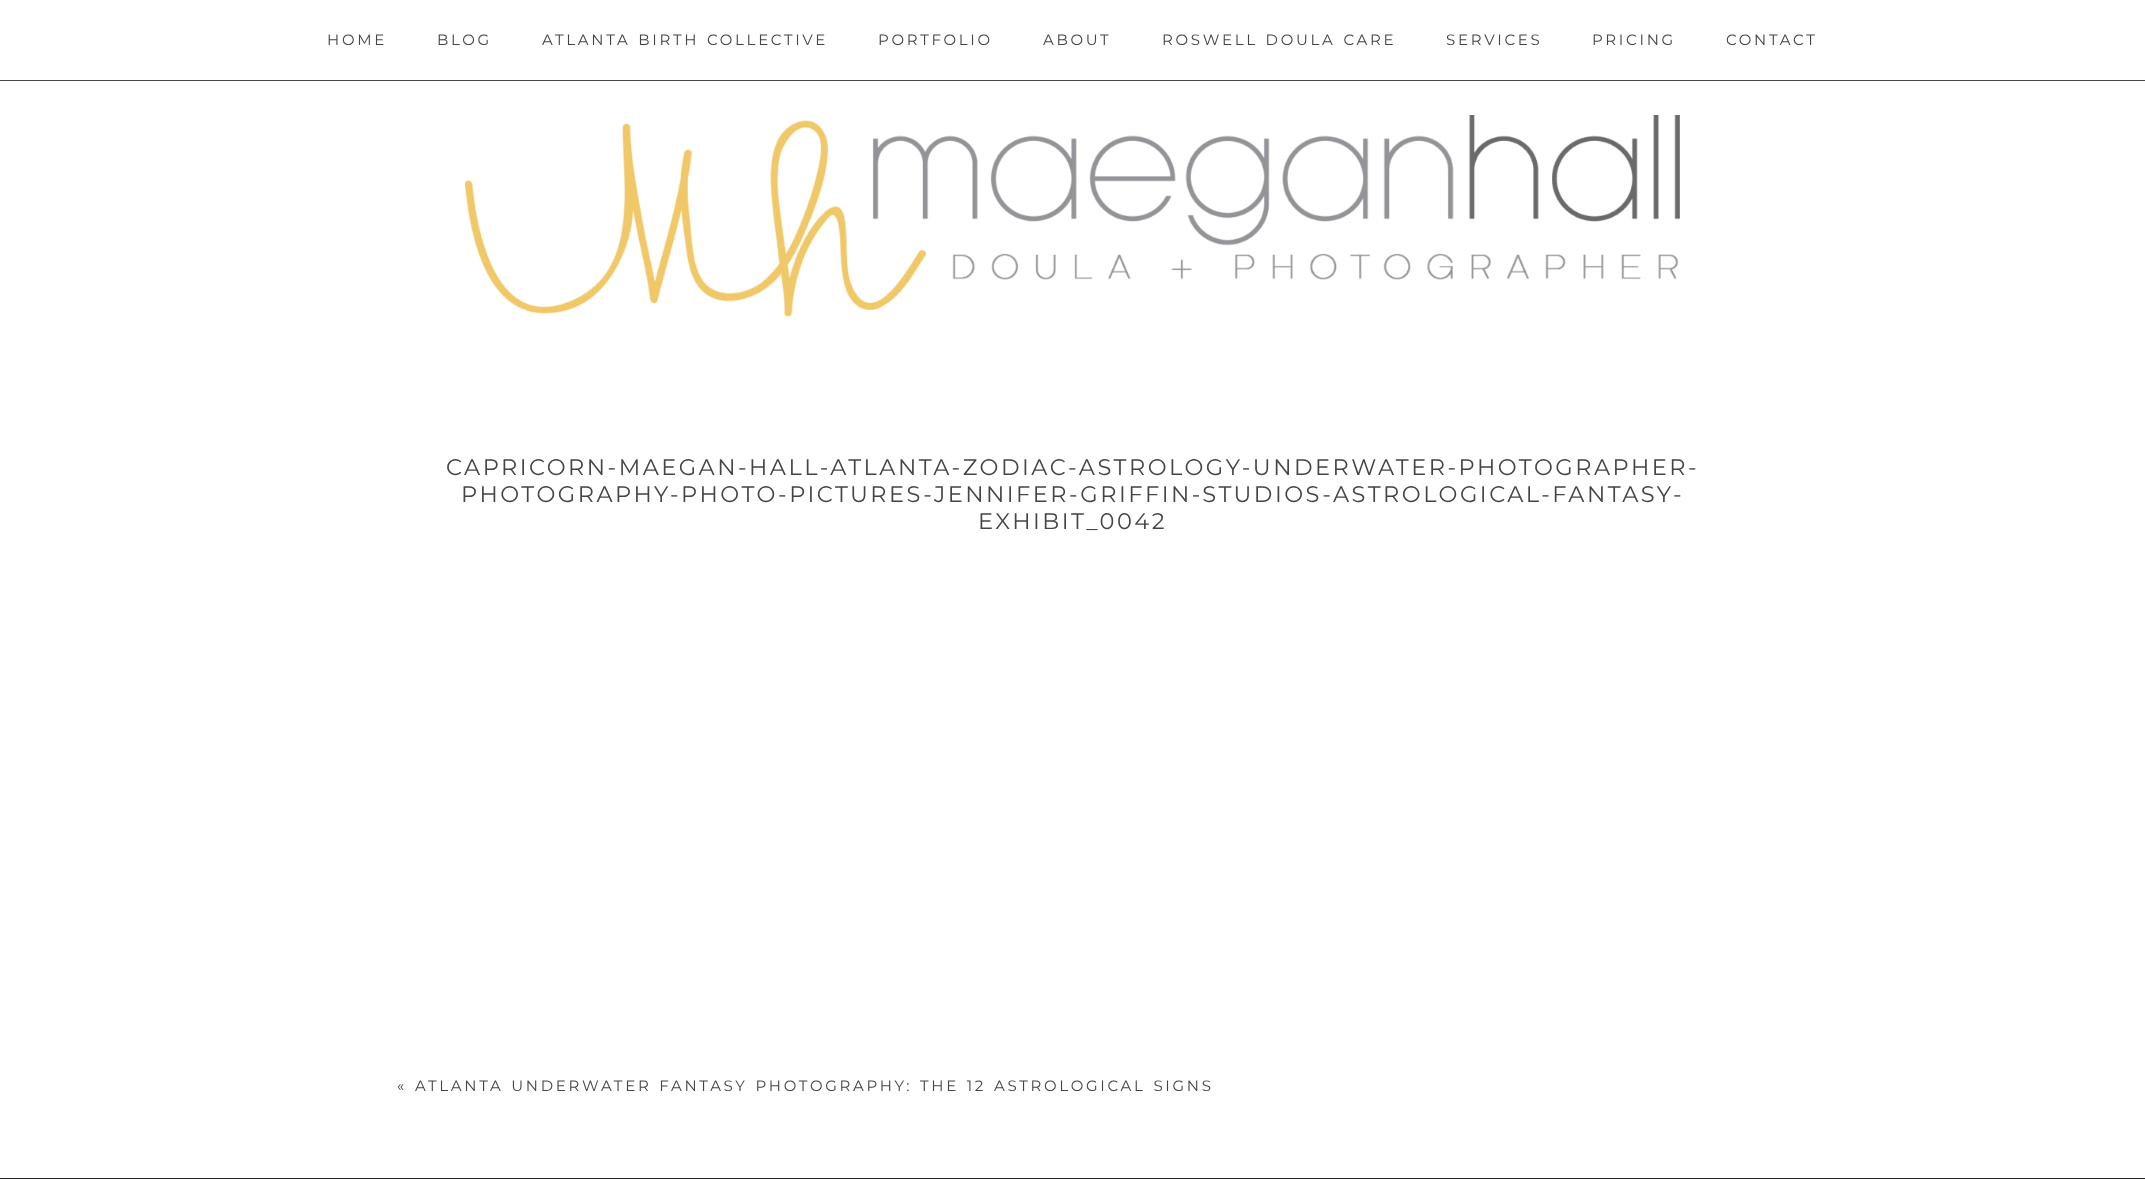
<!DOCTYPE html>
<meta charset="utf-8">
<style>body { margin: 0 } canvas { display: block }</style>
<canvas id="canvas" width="2145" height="1179"></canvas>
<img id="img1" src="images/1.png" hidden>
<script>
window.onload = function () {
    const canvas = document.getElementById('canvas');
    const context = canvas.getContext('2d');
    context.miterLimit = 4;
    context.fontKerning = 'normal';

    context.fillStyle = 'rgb(255, 255, 255)';
    context.fillRect(0, 0, 2145, 1179);
    context.fillStyle = 'rgb(72, 72, 72)';
    context.fillRect(0, 80, 2145, 1);
    context.drawImage(document.getElementById('img1'), 465, 115, 1215, 202);
    context.fillStyle = 'rgb(34, 34, 34)';
    context.fillRect(0, 1178, 2145, 1);
    context.letterSpacing = '2.7px';
    context.font = '100 15px Montserrat';
    context.fillStyle = 'rgb(68, 68, 68)';
    context.fillText('HOME', 327, 45);
    context.fillText('BLOG', 437, 45);
    context.wordSpacing = '1.25px';
    context.fillText('ATLANTA BIRTH COLLECTIVE', 542, 45);
    context.wordSpacing = '0px';
    context.fillText('PORTFOLIO', 878, 45);
    context.fillText('ABOUT', 1043, 45);
    context.wordSpacing = '1.25px';
    context.fillText('ROSWELL DOULA CARE', 1162, 45);
    context.wordSpacing = '0px';
    context.fillText('SERVICES', 1446, 45);
    context.fillText('PRICING', 1592, 45);
    context.fillText('CONTACT', 1726, 45);
    context.letterSpacing = '2.48px';
    context.font = '100 22.5px Montserrat';
    context.fillText('CAPRICORN-MAEGAN-HALL-ATLANTA-ZODIAC-ASTROLOGY-UNDERWATER-PHOTOGRAPHER-', 446, 475);
    context.fillText('PHOTOGRAPHY-PHOTO-PICTURES-JENNIFER-GRIFFIN-STUDIOS-ASTROLOGICAL-FANTASY-', 461, 502);
    context.fillText('EXHIBIT_0042', 978, 529);
    context.letterSpacing = '2.7px';
    context.font = '100 15px Montserrat';
    context.fillText('«', 397, 1091);
    context.wordSpacing = '1.25px';
    context.fillText('ATLANTA UNDERWATER FANTASY PHOTOGRAPHY: THE 12 ASTROLOGICAL SIGNS', 415, 1091);
};
</script>
